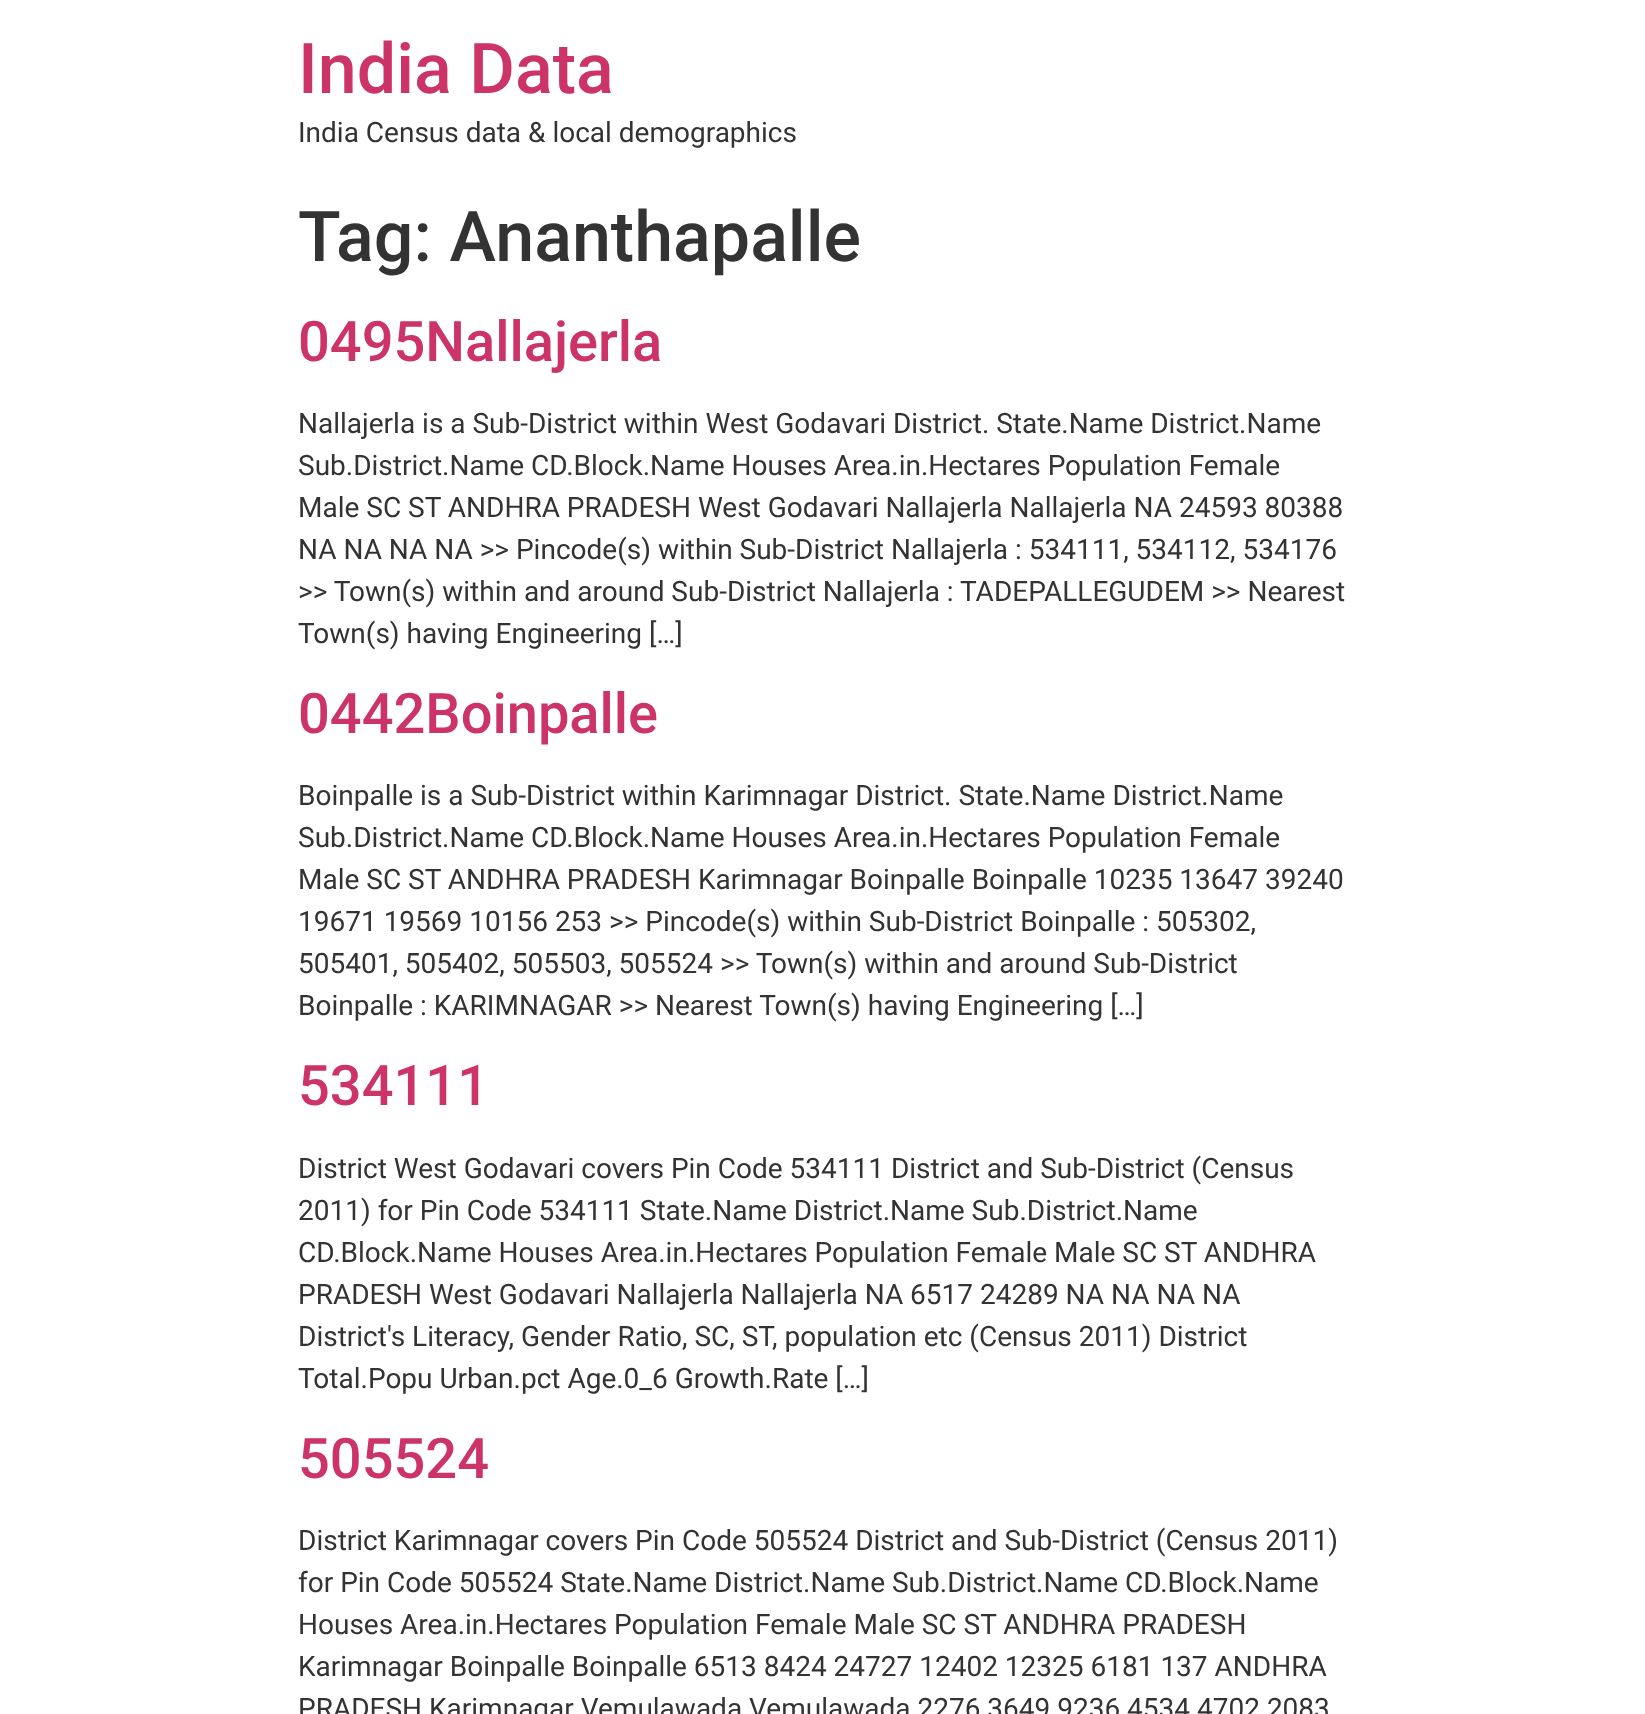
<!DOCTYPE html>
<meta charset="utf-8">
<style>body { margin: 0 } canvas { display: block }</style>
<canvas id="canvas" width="1645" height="1714"></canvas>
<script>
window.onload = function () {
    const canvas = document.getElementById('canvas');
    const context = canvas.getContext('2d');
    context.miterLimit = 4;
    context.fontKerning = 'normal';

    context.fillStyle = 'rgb(255, 255, 255)';
    context.fillRect(0, 0, 1645, 1714);
    context.font = '500 70px Roboto';
    context.fillStyle = 'rgb(204, 51, 102)';
    context.fillText('India Data', 298, 93);
    context.font = '28px Roboto';
    context.fillStyle = 'rgb(51, 51, 51)';
    context.fillText('India Census data & local demographics', 298, 142);
    context.font = '500 70px Roboto';
    context.fillText('Tag: Ananthapalle', 298, 261);
    context.font = '500 56px Roboto';
    context.fillStyle = 'rgb(204, 51, 102)';
    context.fillText('0495Nallajerla', 298, 361);
    context.font = '28px Roboto';
    context.fillStyle = 'rgb(51, 51, 51)';
    context.fillText('Nallajerla is a Sub-District within West Godavari District. State.Name District.Name', 298, 433);
    context.fillText('Sub.District.Name CD.Block.Name Houses Area.in.Hectares Population Female', 298, 475);
    context.fillText('Male SC ST ANDHRA PRADESH West Godavari Nallajerla Nallajerla NA 24593 80388', 298, 517);
    context.fillText('NA NA NA NA >> Pincode(s) within Sub-District Nallajerla : 534111, 534112, 534176', 298, 559);
    context.fillText('>> Town(s) within and around Sub-District Nallajerla : TADEPALLEGUDEM >> Nearest', 298, 601);
    context.fillText('Town(s) having Engineering […]', 298, 643);
    context.font = '500 56px Roboto';
    context.fillStyle = 'rgb(204, 51, 102)';
    context.fillText('0442Boinpalle', 298, 733);
    context.font = '28px Roboto';
    context.fillStyle = 'rgb(51, 51, 51)';
    context.fillText('Boinpalle is a Sub-District within Karimnagar District. State.Name District.Name', 298, 805);
    context.fillText('Sub.District.Name CD.Block.Name Houses Area.in.Hectares Population Female', 298, 847);
    context.fillText('Male SC ST ANDHRA PRADESH Karimnagar Boinpalle Boinpalle 10235 13647 39240', 298, 889);
    context.fillText('19671 19569 10156 253 >> Pincode(s) within Sub-District Boinpalle : 505302,', 298, 931);
    context.fillText('505401, 505402, 505503, 505524 >> Town(s) within and around Sub-District', 298, 973);
    context.fillText('Boinpalle : KARIMNAGAR >> Nearest Town(s) having Engineering […]', 298, 1015);
    context.font = '500 56px Roboto';
    context.fillStyle = 'rgb(204, 51, 102)';
    context.fillText('534111', 298, 1105);
    context.font = '28px Roboto';
    context.fillStyle = 'rgb(51, 51, 51)';
    context.fillText('District West Godavari covers Pin Code 534111 District and Sub-District (Census', 298, 1178);
    context.fillText('2011) for Pin Code 534111 State.Name District.Name Sub.District.Name', 298, 1220);
    context.fillText('CD.Block.Name Houses Area.in.Hectares Population Female Male SC ST ANDHRA', 298, 1262);
    context.fillText('PRADESH West Godavari Nallajerla Nallajerla NA 6517 24289 NA NA NA NA', 298, 1304);
    context.fillText('District\'s Literacy, Gender Ratio, SC, ST, population etc (Census 2011) District', 298, 1346);
    context.fillText('Total.Popu Urban.pct Age.0_6 Growth.Rate […]', 298, 1388);
    context.font = '500 56px Roboto';
    context.fillStyle = 'rgb(204, 51, 102)';
    context.fillText('505524', 298, 1478);
    context.font = '28px Roboto';
    context.fillStyle = 'rgb(51, 51, 51)';
    context.fillText('District Karimnagar covers Pin Code 505524 District and Sub-District (Census 2011)', 298, 1550);
    context.fillText('for Pin Code 505524 State.Name District.Name Sub.District.Name CD.Block.Name', 298, 1592);
    context.fillText('Houses Area.in.Hectares Population Female Male SC ST ANDHRA PRADESH', 298, 1634);
    context.fillText('Karimnagar Boinpalle Boinpalle 6513 8424 24727 12402 12325 6181 137 ANDHRA', 298, 1676);
    context.fillText('PRADESH Karimnagar Vemulawada Vemulawada 2276 3649 9236 4534 4702 2083', 298, 1718);
};
</script>
